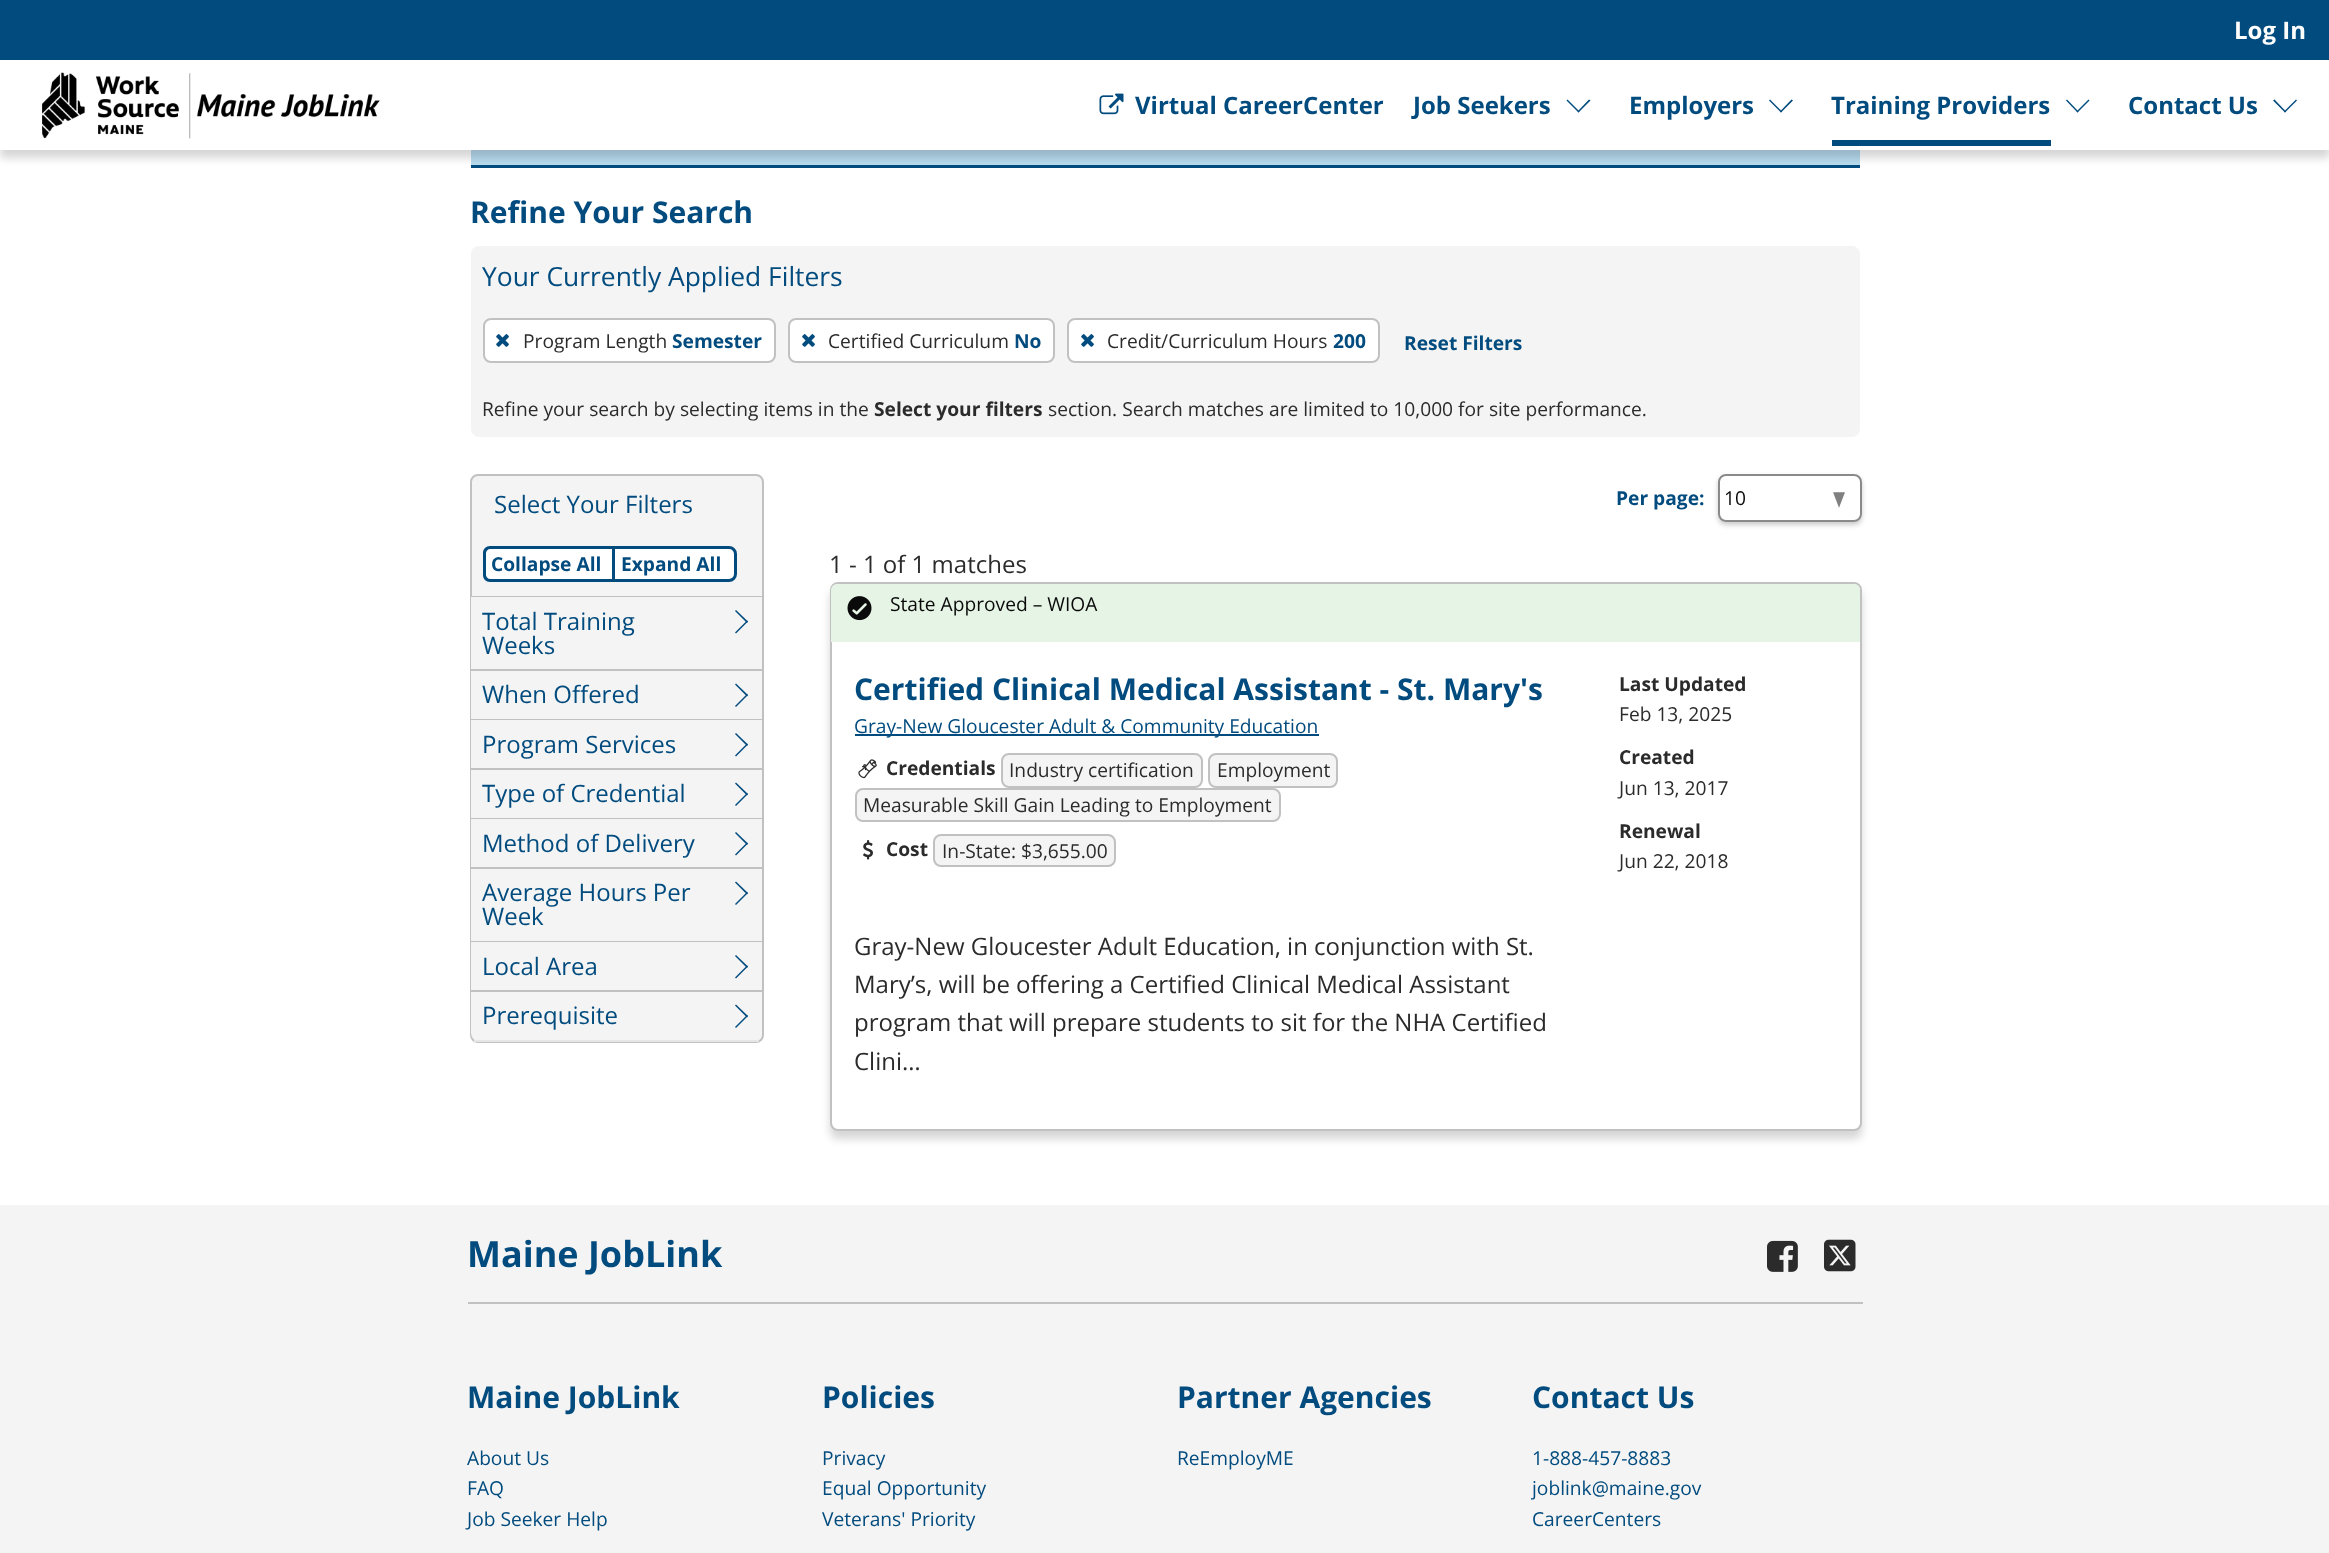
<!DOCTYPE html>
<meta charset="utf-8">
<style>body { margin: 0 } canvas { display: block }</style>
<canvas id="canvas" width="2329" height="1553"></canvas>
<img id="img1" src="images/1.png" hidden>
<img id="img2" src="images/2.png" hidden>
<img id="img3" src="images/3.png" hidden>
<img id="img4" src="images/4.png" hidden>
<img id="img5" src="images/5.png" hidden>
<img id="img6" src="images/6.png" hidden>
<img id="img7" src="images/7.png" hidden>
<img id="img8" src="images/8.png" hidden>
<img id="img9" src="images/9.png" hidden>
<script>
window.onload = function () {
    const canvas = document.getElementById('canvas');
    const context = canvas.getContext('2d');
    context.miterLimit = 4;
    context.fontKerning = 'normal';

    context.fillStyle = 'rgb(255, 255, 255)';
    context.fillRect(0, 0, 2329, 1553);
    context.fillStyle = 'rgb(1, 75, 126)';
    context.fillRect(471, 165, 1389, 3);
    context.fillStyle = 'rgb(183, 219, 239)';
    context.fillRect(471, 150, 1389, 15);
    context.fillStyle = 'rgba(0, 0, 0, 0.16)';
    context.filter = 'blur(4.5px)';
    context.beginPath();
    context.rect(0, 68, 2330, 90);
    context.fill();
    context.filter = 'none';
    context.fillStyle = 'rgb(255, 255, 255)';
    context.fillRect(0, 61, 2329, 89);
    context.drawImage(document.getElementById('img1'), 42, 72, 338, 67);
    context.fillStyle = 'rgb(1, 75, 126)';
    context.fillRect(0, 0, 2329, 60);
    context.drawImage(document.getElementById('img2'), 1099, 93, 25, 22);
    context.beginPath();
    context.moveTo(1589, 99.5);
    context.lineTo(1590.5, 100.5);
    context.lineTo(1578.5, 112.5);
    context.lineTo(1577.5, 111.5);
    context.closePath();
    context.fill();
    context.beginPath();
    context.moveTo(1567.5, 99.5);
    context.lineTo(1579.5, 111.5);
    context.lineTo(1578.5, 112.5);
    context.lineTo(1566.5, 100.5);
    context.closePath();
    context.fill();
    context.beginPath();
    context.moveTo(1791.5, 99.5);
    context.lineTo(1793, 100.5);
    context.lineTo(1781, 112.5);
    context.lineTo(1780, 111.5);
    context.closePath();
    context.fill();
    context.beginPath();
    context.moveTo(1770, 99.5);
    context.lineTo(1782, 111.5);
    context.lineTo(1781, 112.5);
    context.lineTo(1769, 100.5);
    context.closePath();
    context.fill();
    context.fillRect(1832, 140, 219, 6);
    context.beginPath();
    context.moveTo(2088.5, 99.5);
    context.lineTo(2089.5, 100.5);
    context.lineTo(2077.5, 112.5);
    context.lineTo(2076.5, 111.5);
    context.closePath();
    context.fill();
    context.beginPath();
    context.moveTo(2067, 99.5);
    context.lineTo(2078.5, 111.5);
    context.lineTo(2077.5, 112.5);
    context.lineTo(2066, 100.5);
    context.closePath();
    context.fill();
    context.beginPath();
    context.moveTo(2296, 99.5);
    context.lineTo(2297, 100.5);
    context.lineTo(2285, 112.5);
    context.lineTo(2284, 111.5);
    context.closePath();
    context.fill();
    context.beginPath();
    context.moveTo(2274.5, 99.5);
    context.lineTo(2286, 111.5);
    context.lineTo(2285, 112.5);
    context.lineTo(2273, 100.5);
    context.closePath();
    context.fill();
    context.fillStyle = 'rgb(244, 244, 244)';
    context.beginPath();
    context.roundRect(471, 246, 1389, 191, 8);
    context.fill();
    context.fillStyle = 'rgb(255, 255, 255)';
    context.beginPath();
    context.roundRect(484, 319, 291, 43, 7);
    context.fill();
    context.strokeStyle = 'rgb(193, 193, 193)';
    context.lineWidth = 2;
    context.stroke();
    context.drawImage(document.getElementById('img3'), 496, 334, 13, 13);
    context.beginPath();
    context.roundRect(789, 319, 265, 43, 7);
    context.fill();
    context.stroke();
    context.drawImage(document.getElementById('img3'), 802, 334, 13, 13);
    context.beginPath();
    context.roundRect(1068, 319, 311, 43, 7);
    context.fill();
    context.stroke();
    context.drawImage(document.getElementById('img3'), 1081, 334, 13, 13);
    context.fillStyle = 'rgb(244, 244, 244)';
    context.beginPath();
    context.roundRect(471, 475, 292, 567, 7);
    context.fill();
    context.stroke();
    context.fillStyle = 'rgb(255, 255, 255)';
    context.beginPath();
    context.roundRect(486, 549, 128, 30, [5, 0, 0, 5]);
    context.fill();
    context.fillStyle = 'rgb(1, 75, 126)';
    context.beginPath();
    context.moveTo(490, 546);
    context.lineTo(614, 546);
    context.lineTo(614, 582);
    context.lineTo(490, 582);
    context.bezierCurveTo(486, 582, 483, 579, 483, 575);
    context.lineTo(483, 553);
    context.bezierCurveTo(483, 549, 486, 546, 490, 546);
    context.closePath();
    context.moveTo(490, 549);
    context.lineTo(614, 549);
    context.lineTo(614, 579);
    context.lineTo(490, 579);
    context.bezierCurveTo(488, 579, 486, 577, 486, 575);
    context.lineTo(486, 553);
    context.bezierCurveTo(486, 551, 488, 549, 490, 549);
    context.closePath();
    context.fill('evenodd');
    context.fillStyle = 'rgb(255, 255, 255)';
    context.beginPath();
    context.roundRect(613.5, 547.5, 122, 33, [0, 6.5, 6.5, 0]);
    context.fill();
    context.strokeStyle = 'rgb(1, 75, 126)';
    context.lineWidth = 3;
    context.stroke();
    context.fillStyle = 'rgb(193, 193, 193)';
    context.fillRect(471, 596, 291, 1);
    context.fillStyle = 'rgb(244, 244, 244)';
    context.fillRect(471, 597, 1, 72);
    context.fillStyle = 'rgb(1, 75, 126)';
    context.beginPath();
    context.moveTo(735, 611);
    context.lineTo(736, 610);
    context.lineTo(748, 621.5);
    context.lineTo(747, 623);
    context.closePath();
    context.fill();
    context.beginPath();
    context.moveTo(735, 632.5);
    context.lineTo(747, 620.5);
    context.lineTo(748, 621.5);
    context.lineTo(736, 633.5);
    context.closePath();
    context.fill();
    context.fillStyle = 'rgb(193, 193, 193)';
    context.fillRect(471, 669, 291, 2);
    context.fillStyle = 'rgb(244, 244, 244)';
    context.fillRect(471, 671, 1, 48);
    context.fillStyle = 'rgb(1, 75, 126)';
    context.beginPath();
    context.moveTo(735, 684.5);
    context.lineTo(736, 683.5);
    context.lineTo(748, 695);
    context.lineTo(747, 696.5);
    context.closePath();
    context.fill();
    context.beginPath();
    context.moveTo(735, 706);
    context.lineTo(747, 694);
    context.lineTo(748, 695);
    context.lineTo(736, 707);
    context.closePath();
    context.fill();
    context.fillStyle = 'rgb(193, 193, 193)';
    context.fillRect(471, 719, 291, 1);
    context.fillStyle = 'rgb(244, 244, 244)';
    context.fillRect(471, 720, 1, 48);
    context.fillStyle = 'rgb(1, 75, 126)';
    context.beginPath();
    context.moveTo(735, 734);
    context.lineTo(736, 733);
    context.lineTo(748, 744.5);
    context.lineTo(747, 746);
    context.closePath();
    context.fill();
    context.beginPath();
    context.moveTo(735, 755.5);
    context.lineTo(747, 743.5);
    context.lineTo(748, 744.5);
    context.lineTo(736, 756.5);
    context.closePath();
    context.fill();
    context.fillStyle = 'rgb(193, 193, 193)';
    context.fillRect(471, 768, 291, 2);
    context.fillStyle = 'rgb(244, 244, 244)';
    context.fillRect(471, 770, 1, 48);
    context.fillStyle = 'rgb(1, 75, 126)';
    context.beginPath();
    context.moveTo(735, 783.5);
    context.lineTo(736, 782.5);
    context.lineTo(748, 794);
    context.lineTo(747, 795.5);
    context.closePath();
    context.fill();
    context.beginPath();
    context.moveTo(735, 805);
    context.lineTo(747, 793);
    context.lineTo(748, 794);
    context.lineTo(736, 806);
    context.closePath();
    context.fill();
    context.fillStyle = 'rgb(193, 193, 193)';
    context.fillRect(471, 818, 291, 1);
    context.fillStyle = 'rgb(244, 244, 244)';
    context.fillRect(471, 819, 1, 48);
    context.fillStyle = 'rgb(1, 75, 126)';
    context.beginPath();
    context.moveTo(735, 833);
    context.lineTo(736, 832);
    context.lineTo(748, 843.5);
    context.lineTo(747, 845);
    context.closePath();
    context.fill();
    context.beginPath();
    context.moveTo(735, 854.5);
    context.lineTo(747, 842.5);
    context.lineTo(748, 843.5);
    context.lineTo(736, 855.5);
    context.closePath();
    context.fill();
    context.fillStyle = 'rgb(193, 193, 193)';
    context.fillRect(471, 867, 291, 2);
    context.fillStyle = 'rgb(244, 244, 244)';
    context.fillRect(471, 869, 1, 72);
    context.fillStyle = 'rgb(1, 75, 126)';
    context.beginPath();
    context.moveTo(735, 882.5);
    context.lineTo(736, 881.5);
    context.lineTo(748, 893);
    context.lineTo(747, 894.5);
    context.closePath();
    context.fill();
    context.beginPath();
    context.moveTo(735, 904);
    context.lineTo(747, 892);
    context.lineTo(748, 893);
    context.lineTo(736, 905);
    context.closePath();
    context.fill();
    context.fillStyle = 'rgb(193, 193, 193)';
    context.fillRect(471, 941, 291, 1);
    context.fillStyle = 'rgb(244, 244, 244)';
    context.fillRect(471, 942, 1, 48);
    context.fillStyle = 'rgb(1, 75, 126)';
    context.beginPath();
    context.moveTo(735, 956);
    context.lineTo(736, 955);
    context.lineTo(748, 966.5);
    context.lineTo(747, 968);
    context.closePath();
    context.fill();
    context.beginPath();
    context.moveTo(735, 977.5);
    context.lineTo(747, 965.5);
    context.lineTo(748, 966.5);
    context.lineTo(736, 978.5);
    context.closePath();
    context.fill();
    context.fillStyle = 'rgb(193, 193, 193)';
    context.fillRect(471, 990, 291, 2);
    context.fillStyle = 'rgb(244, 244, 244)';
    context.beginPath();
    context.roundRect(471, 992, 291, 49, [0, 0, 8, 8]);
    context.fill();
    context.fillStyle = 'rgb(230, 230, 230)';
    context.fillRect(474, 1040, 285, 2);
    context.fillStyle = 'rgb(1, 75, 126)';
    context.beginPath();
    context.moveTo(735, 1005.5);
    context.lineTo(736, 1004.5);
    context.lineTo(748, 1016);
    context.lineTo(747, 1017.5);
    context.closePath();
    context.fill();
    context.beginPath();
    context.moveTo(735, 1027);
    context.lineTo(747, 1015);
    context.lineTo(748, 1016);
    context.lineTo(736, 1028);
    context.closePath();
    context.fill();
    context.fillStyle = 'rgba(0, 0, 0, 0.2)';
    context.filter = 'blur(2.5px)';
    context.beginPath();
    context.roundRect(1718, 477, 144, 48, 8);
    context.fill();
    context.filter = 'none';
    context.fillStyle = 'rgb(255, 255, 255)';
    context.beginPath();
    context.roundRect(1718, 474, 144, 48, 8);
    context.fill();
    context.drawImage(document.getElementById('img4'), 1833, 492, 12, 16);
    context.beginPath();
    context.roundRect(1719, 475, 142, 46, 7);
    context.strokeStyle = 'rgb(138, 138, 138)';
    context.lineWidth = 2;
    context.stroke();
    context.fillStyle = 'rgba(0, 0, 0, 0.16)';
    context.filter = 'blur(4.5px)';
    context.beginPath();
    context.roundRect(830, 590, 1032, 549, 8);
    context.fill();
    context.filter = 'none';
    context.fillStyle = 'rgb(255, 255, 255)';
    context.beginPath();
    context.roundRect(831, 583, 1030, 547, 7);
    context.fill();
    context.strokeStyle = 'rgb(193, 193, 193)';
    context.stroke();
    context.fillStyle = 'rgb(230, 244, 229)';
    context.beginPath();
    context.roundRect(831, 584, 1029, 58, [6, 6, 0, 0]);
    context.fill();
    context.drawImage(document.getElementById('img5'), 847, 596, 25, 25);
    context.fillStyle = 'rgb(1, 75, 126)';
    context.fillRect(855, 734, 464, 2);
    context.drawImage(document.getElementById('img6'), 858, 759, 19, 20);
    context.fillStyle = 'rgb(244, 244, 244)';
    context.beginPath();
    context.roundRect(1002, 754, 200, 33, 7);
    context.fill();
    context.stroke();
    context.beginPath();
    context.roundRect(1209, 754, 128, 33, 7);
    context.fill();
    context.stroke();
    context.beginPath();
    context.roundRect(856, 789, 424, 32, 7);
    context.fill();
    context.stroke();
    context.drawImage(document.getElementById('img7'), 863, 840, 10, 20);
    context.beginPath();
    context.roundRect(934, 835, 181, 31, 7);
    context.fill();
    context.stroke();
    context.fillRect(0, 1205, 2329, 348);
    context.drawImage(document.getElementById('img8'), 1767, 1240, 31, 32);
    context.drawImage(document.getElementById('img9'), 1824, 1239, 32, 33);
    context.fillStyle = 'rgb(193, 193, 193)';
    context.fillRect(468, 1302, 1395, 2);
    context.font = 'bold 24px Open Sans';
    context.fillStyle = 'rgb(255, 255, 255)';
    context.fillText('Log In', 2234, 39);
    context.fillStyle = 'rgb(1, 75, 126)';
    context.fillText('Virtual CareerCenter', 1135, 114);
    context.fillText('Job Seekers', 1413, 114);
    context.fillText('Employers', 1629, 114);
    context.fillText('Training Providers', 1831, 114);
    context.fillText('Contact Us', 2128, 114);
    context.font = 'bold 30px Open Sans';
    context.fillText('Refine Your Search', 470, 223);
    context.font = '26.4px Open Sans';
    context.fillText('Your Currently Applied Filters', 482, 286);
    context.font = '19.2px Open Sans';
    context.fillStyle = 'rgb(43, 43, 43)';
    context.fillText('Program Length', 523, 348);
    context.font = 'bold 19.2px Open Sans';
    context.fillStyle = 'rgb(1, 75, 126)';
    context.fillText('Semester', 672, 348);
    context.font = '19.2px Open Sans';
    context.fillStyle = 'rgb(43, 43, 43)';
    context.fillText('Certified Curriculum', 828, 348);
    context.font = 'bold 19.2px Open Sans';
    context.fillStyle = 'rgb(1, 75, 126)';
    context.fillText('No', 1014, 348);
    context.font = '19.2px Open Sans';
    context.fillStyle = 'rgb(43, 43, 43)';
    context.fillText('Credit/Curriculum Hours', 1107, 348);
    context.font = 'bold 19.2px Open Sans';
    context.fillStyle = 'rgb(1, 75, 126)';
    context.fillText('200', 1333, 348);
    context.fillText('Reset Filters', 1404, 350);
    context.font = '19.2px Open Sans';
    context.fillStyle = 'rgb(43, 43, 43)';
    context.fillText('Refine your search by selecting items in the', 482, 416);
    context.font = 'bold 19.2px Open Sans';
    context.fillText('Select your filters', 874, 416);
    context.font = '19.2px Open Sans';
    context.fillText('section. Search matches are limited to 10,000 for site performance.', 1048, 416);
    context.font = '24px Open Sans';
    context.fillStyle = 'rgb(1, 75, 126)';
    context.fillText('Select Your Filters', 494, 513);
    context.font = 'bold 19.2px Open Sans';
    context.fillText('Collapse All', 491, 571);
    context.fillText('Expand All', 621, 571);
    context.font = '24px Open Sans';
    context.fillText('Total Training', 482, 630);
    context.fillText('Weeks', 482, 654);
    context.fillText('When Offered', 482, 703);
    context.fillText('Program Services', 482, 753);
    context.fillText('Type of Credential', 482, 802);
    context.fillText('Method of Delivery', 482, 852);
    context.fillText('Average Hours Per', 482, 901);
    context.fillText('Week', 482, 925);
    context.fillText('Local Area', 482, 975);
    context.fillText('Prerequisite', 482, 1024);
    context.font = 'bold 19.2px Open Sans';
    context.fillText('Per page:', 1616, 505);
    context.font = '19.2px Open Sans';
    context.fillStyle = 'rgb(10, 10, 10)';
    context.fillText('10', 1724, 505);
    context.font = '24px Open Sans';
    context.fillStyle = 'rgb(43, 43, 43)';
    context.fillText('1 - 1 of 1 matches', 829, 573);
    context.font = '19.2px Open Sans';
    context.fillStyle = 'rgb(10, 10, 10)';
    context.fillText('State Approved – WIOA', 890, 611);
    context.font = 'bold 30px Open Sans';
    context.fillStyle = 'rgb(1, 75, 126)';
    context.fillText('Certified Clinical Medical Assistant - St. Mary\'s', 854, 700);
    context.font = '19.2px Open Sans';
    context.fillText('Gray-New Gloucester Adult & Community Education', 854, 733);
    context.font = 'bold 19.2px Open Sans';
    context.fillStyle = 'rgb(43, 43, 43)';
    context.fillText('Credentials', 886, 775);
    context.font = '19.2px Open Sans';
    context.fillText('Industry certification', 1009, 777);
    context.fillText('Employment', 1217, 777);
    context.fillText('Measurable Skill Gain Leading to Employment', 863, 812);
    context.font = 'bold 19.2px Open Sans';
    context.fillText('Cost', 886, 856);
    context.font = '19.2px Open Sans';
    context.fillText('In-State: $3,655.00', 942, 858);
    context.font = 'bold 19.2px Open Sans';
    context.fillText('Last Updated', 1619, 691);
    context.font = '19.2px Open Sans';
    context.fillText('Feb 13, 2025', 1619, 721);
    context.font = 'bold 19.2px Open Sans';
    context.fillText('Created', 1619, 764);
    context.font = '19.2px Open Sans';
    context.fillText('Jun 13, 2017', 1619, 795);
    context.font = 'bold 19.2px Open Sans';
    context.fillText('Renewal', 1619, 838);
    context.font = '19.2px Open Sans';
    context.fillText('Jun 22, 2018', 1619, 868);
    context.font = '24px Open Sans';
    context.fillText('Gray-New Gloucester Adult Education, in conjunction with St.', 854, 955);
    context.fillText('Mary’s, will be offering a Certified Clinical Medical Assistant', 854, 993);
    context.fillText('program that will prepare students to sit for the NHA Certified', 854, 1031);
    context.fillText('Clini…', 854, 1070);
    context.font = 'bold 36px Open Sans';
    context.fillStyle = 'rgb(1, 75, 126)';
    context.fillText('Maine JobLink', 467, 1267);
    context.font = 'bold 30px Open Sans';
    context.fillText('Maine JobLink', 467, 1408);
    context.font = '19.2px Open Sans';
    context.fillText('About Us', 467, 1465);
    context.fillText('FAQ', 467, 1495);
    context.fillText('Job Seeker Help', 467, 1526);
    context.font = 'bold 30px Open Sans';
    context.fillText('Policies', 822, 1408);
    context.font = '19.2px Open Sans';
    context.fillText('Privacy', 822, 1465);
    context.fillText('Equal Opportunity', 822, 1495);
    context.fillText('Veterans\' Priority', 822, 1526);
    context.font = 'bold 30px Open Sans';
    context.fillText('Partner Agencies', 1177, 1408);
    context.font = '19.2px Open Sans';
    context.fillText('ReEmployME', 1177, 1465);
    context.font = 'bold 30px Open Sans';
    context.fillText('Contact Us', 1532, 1408);
    context.font = '19.2px Open Sans';
    context.fillText('1-888-457-8883', 1532, 1465);
    context.fillText('joblink@maine.gov', 1532, 1495);
    context.fillText('CareerCenters', 1532, 1526);
};
</script>
